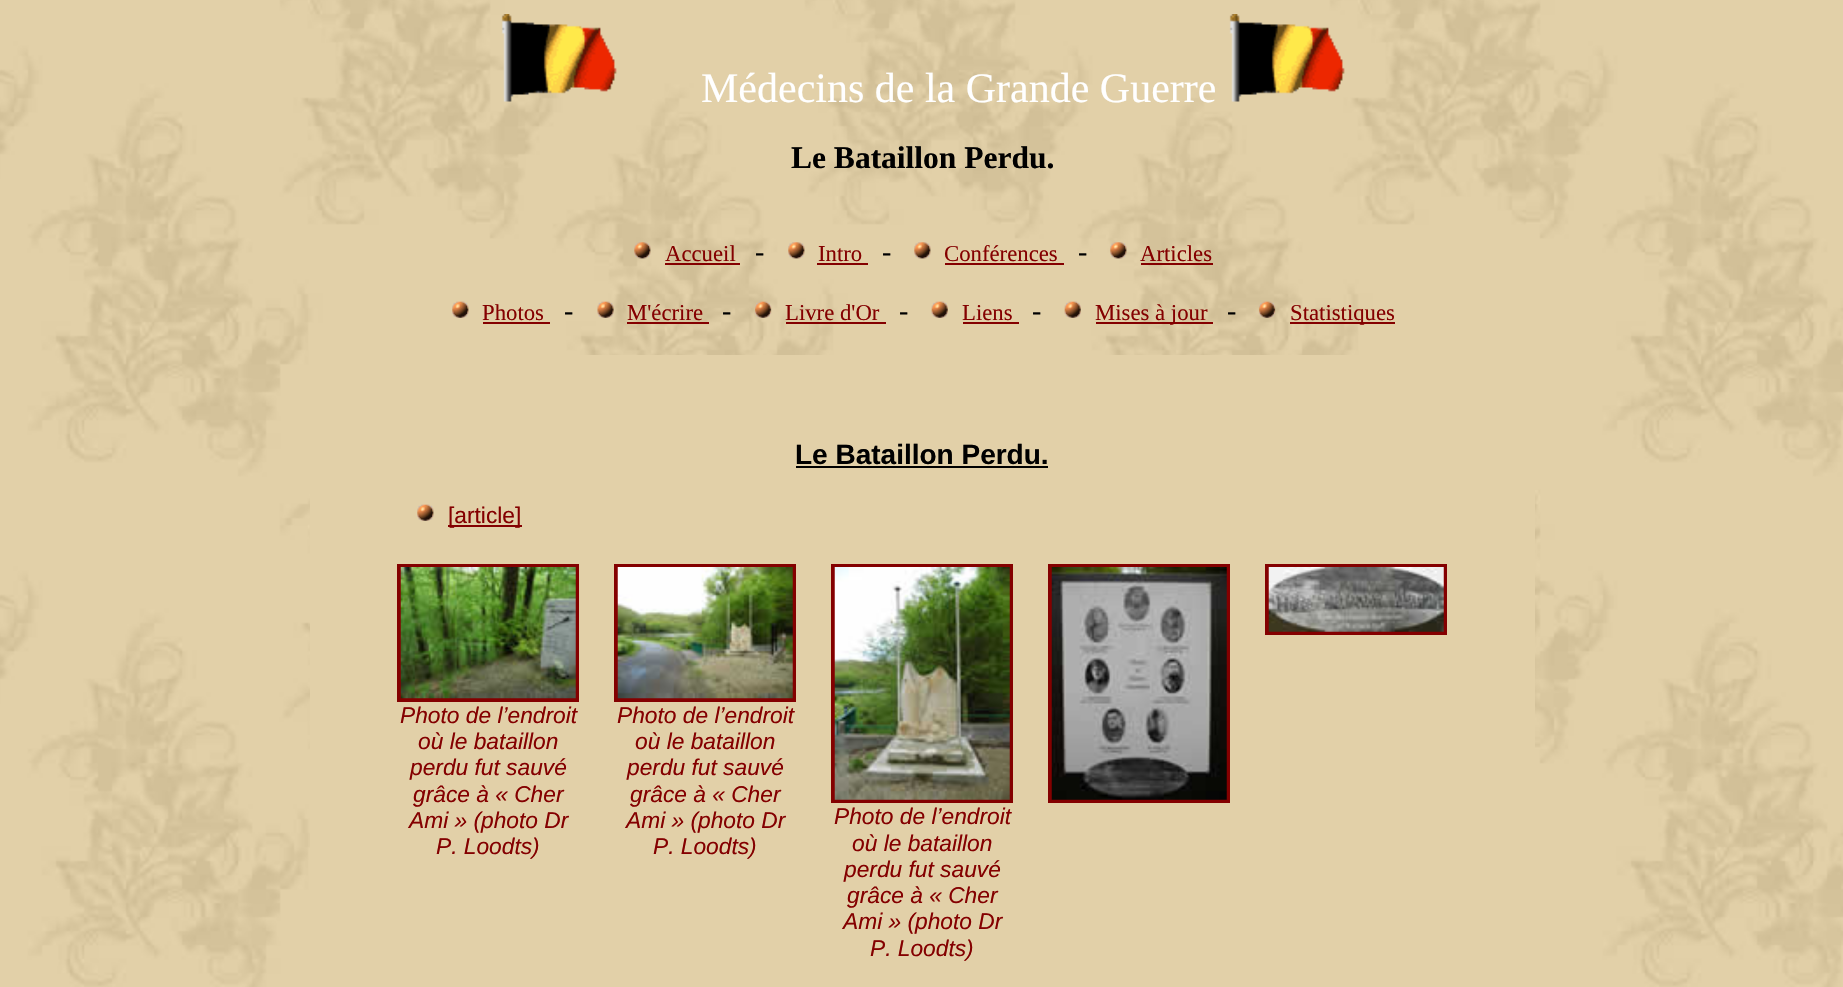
void draw(SkCanvas* canvas) {
	SkPaint paint;
	paint.setAntiAlias(true);
	canvas->clear(0xffffffff);
	canvas->drawImageRect(SkImages::DeferredFromEncodedData(SkData::MakeFromFileName("img1.png")), SkRect::MakeXYWH(0, 0, 1843, 987), SkSamplingOptions());
	canvas->drawImageRect(SkImages::DeferredFromEncodedData(SkData::MakeFromFileName("img2.png")), SkRect::MakeXYWH(501, 14, 116, 88), SkSamplingOptions());
	SkFont f1(fontMgr->matchFamilyStyle("Liberation Serif", SkFontStyle::Normal()), 42);
	f1.setSubpixel(true);
	paint.setColor(0xffffffff);
	canvas->drawString("Médecins de la Grande Guerre", 701, 102, f1, paint);
	canvas->drawImageRect(SkImages::DeferredFromEncodedData(SkData::MakeFromFileName("img3.png")), SkRect::MakeXYWH(1229, 14, 116, 88), SkSamplingOptions());
	SkFont f2(fontMgr->matchFamilyStyle("Liberation Serif", SkFontStyle::Bold()), 31.5);
	f2.setSubpixel(true);
	paint.setColor(0xff000000);
	canvas->drawString("Le Bataillon Perdu.", 791, 168, f2, paint);
	canvas->drawImageRect(SkImages::DeferredFromEncodedData(SkData::MakeFromFileName("img4.png")), SkRect::MakeXYWH(634, 242, 17, 17), SkSamplingOptions());
	SkFont f3(fontMgr->matchFamilyStyle("Liberation Serif", SkFontStyle::Normal()), 22.75);
	f3.setSubpixel(true);
	paint.setColor(0xff840000);
	canvas->drawString("Accueil", 665, 261, f3, paint);
	canvas->drawRect(SkRect::MakeXYWH(665, 263, 75, 2), paint);
	SkFont f4(fontMgr->matchFamilyStyle("Liberation Serif", SkFontStyle::Normal()), 28);
	f4.setSubpixel(true);
	paint.setColor(0xff000000);
	canvas->drawString("-", 755, 261, f4, paint);
	canvas->drawImageRect(SkImages::DeferredFromEncodedData(SkData::MakeFromFileName("img5.png")), SkRect::MakeXYWH(788, 242, 17, 17), SkSamplingOptions());
	paint.setColor(0xff840000);
	canvas->drawString("Intro", 818, 261, f3, paint);
	canvas->drawRect(SkRect::MakeXYWH(817, 263, 51, 2), paint);
	paint.setColor(0xff000000);
	canvas->drawString("-", 882, 261, f4, paint);
	canvas->drawImageRect(SkImages::DeferredFromEncodedData(SkData::MakeFromFileName("img5.png")), SkRect::MakeXYWH(914, 242, 17, 17), SkSamplingOptions());
	paint.setColor(0xff840000);
	canvas->drawString("Conférences", 944, 261, f3, paint);
	canvas->drawRect(SkRect::MakeXYWH(945, 263, 119, 2), paint);
	paint.setColor(0xff000000);
	canvas->drawString("-", 1078, 261, f4, paint);
	canvas->drawImageRect(SkImages::DeferredFromEncodedData(SkData::MakeFromFileName("img6.png")), SkRect::MakeXYWH(1110, 242, 17, 17), SkSamplingOptions());
	paint.setColor(0xff840000);
	canvas->drawString("Articles", 1140, 261, f3, paint);
	canvas->drawRect(SkRect::MakeXYWH(1141, 263, 72, 2), paint);
	canvas->drawImageRect(SkImages::DeferredFromEncodedData(SkData::MakeFromFileName("img7.png")), SkRect::MakeXYWH(452, 301, 17, 17), SkSamplingOptions());
	canvas->drawString("Photos", 482, 320, f3, paint);
	canvas->drawRect(SkRect::MakeXYWH(483, 322, 67, 2), paint);
	paint.setColor(0xff000000);
	canvas->drawString("-", 564, 320, f4, paint);
	canvas->drawImageRect(SkImages::DeferredFromEncodedData(SkData::MakeFromFileName("img8.png")), SkRect::MakeXYWH(597, 301, 17, 17), SkSamplingOptions());
	paint.setColor(0xff840000);
	canvas->drawString("M'écrire", 627, 320, f3, paint);
	canvas->drawRect(SkRect::MakeXYWH(627, 322, 82, 2), paint);
	paint.setColor(0xff000000);
	canvas->drawString("-", 722, 320, f4, paint);
	canvas->drawImageRect(SkImages::DeferredFromEncodedData(SkData::MakeFromFileName("img9.png")), SkRect::MakeXYWH(754, 301, 18, 17), SkSamplingOptions());
	paint.setColor(0xff840000);
	canvas->drawString("Livre d'Or", 785, 320, f3, paint);
	canvas->drawRect(SkRect::MakeXYWH(786, 322, 100, 2), paint);
	paint.setColor(0xff000000);
	canvas->drawString("-", 899, 320, f4, paint);
	canvas->drawImageRect(SkImages::DeferredFromEncodedData(SkData::MakeFromFileName("img10.png")), SkRect::MakeXYWH(931, 301, 17, 17), SkSamplingOptions());
	paint.setColor(0xff840000);
	canvas->drawString("Liens", 962, 320, f3, paint);
	canvas->drawRect(SkRect::MakeXYWH(963, 322, 56, 2), paint);
	paint.setColor(0xff000000);
	canvas->drawString("-", 1032, 320, f4, paint);
	canvas->drawImageRect(SkImages::DeferredFromEncodedData(SkData::MakeFromFileName("img10.png")), SkRect::MakeXYWH(1064, 301, 17, 17), SkSamplingOptions());
	paint.setColor(0xff840000);
	canvas->drawRect(SkRect::MakeXYWH(1096, 322, 117, 2), paint);
	canvas->drawString("Mises à jour", 1095, 320, f3, paint);
	paint.setColor(0xff000000);
	canvas->drawString("-", 1227, 320, f4, paint);
	canvas->drawImageRect(SkImages::DeferredFromEncodedData(SkData::MakeFromFileName("img11.png")), SkRect::MakeXYWH(1258, 301, 18, 17), SkSamplingOptions());
	paint.setColor(0xff840000);
	canvas->drawRect(SkRect::MakeXYWH(1290, 322, 105, 2), paint);
	canvas->drawString("Statistiques", 1290, 320, f3, paint);
	paint.setColor(0xffe2d0a8);
	canvas->drawRect(SkRect::MakeXYWH(310, 355, 1225, 632), paint);
	SkFont f5(fontMgr->matchFamilyStyle("Liberation Sans", SkFontStyle::Bold()), 28);
	f5.setSubpixel(true);
	paint.setColor(0xff000000);
	canvas->drawString("Le Bataillon Perdu.", 795, 464, f5, paint);
	canvas->drawRect(SkRect::MakeXYWH(796, 466, 252, 2), paint);
	canvas->drawImageRect(SkImages::DeferredFromEncodedData(SkData::MakeFromFileName("img12.png")), SkRect::MakeXYWH(417, 504, 17, 17), SkSamplingOptions());
	paint.setColor(0xff840000);
	canvas->drawRect(SkRect::MakeXYWH(448, 525, 74, 2), paint);
	SkFont f6(fontMgr->matchFamilyStyle("Liberation Sans", SkFontStyle::Normal()), 22.75);
	f6.setSubpixel(true);
	canvas->drawString("[article]", 448, 523, f6, paint);
	paint.setStroke(true);
	paint.setStrokeWidth(4);
	canvas->drawRect(SkRect::MakeXYWH(1050, 566, 178, 235), paint);
	canvas->drawImageRect(SkImages::DeferredFromEncodedData(SkData::MakeFromFileName("img13.png")), SkRect::MakeXYWH(1051, 567, 176, 233), SkSamplingOptions());
	canvas->drawRect(SkRect::MakeXYWH(1267, 566, 178, 67), paint);
	canvas->drawImageRect(SkImages::DeferredFromEncodedData(SkData::MakeFromFileName("img14.png")), SkRect::MakeXYWH(1268, 567, 176, 65), SkSamplingOptions());
	canvas->drawRect(SkRect::MakeXYWH(399, 566, 178, 134), paint);
	canvas->drawImageRect(SkImages::DeferredFromEncodedData(SkData::MakeFromFileName("img15.png")), SkRect::MakeXYWH(400, 567, 176, 132), SkSamplingOptions());
	SkFont f7(fontMgr->matchFamilyStyle("Liberation Sans", SkFontStyle::Italic()), 22.75);
	f7.setSubpixel(true);
	paint.setStroke(false);
	canvas->drawString("Photo de l’endroit", 400, 723, f7, paint);
	canvas->drawString("où le bataillon", 418, 749, f7, paint);
	canvas->drawString("perdu fut sauvé", 410, 775, f7, paint);
	canvas->drawString("grâce à « Cher", 413, 802, f7, paint);
	canvas->drawString("Ami » (photo Dr", 409, 828, f7, paint);
	canvas->drawString("P. Loodts)", 436, 854, f7, paint);
	paint.setStroke(true);
	canvas->drawRect(SkRect::MakeXYWH(616, 566, 178, 134), paint);
	canvas->drawImageRect(SkImages::DeferredFromEncodedData(SkData::MakeFromFileName("img16.png")), SkRect::MakeXYWH(617, 567, 176, 132), SkSamplingOptions());
	paint.setStroke(false);
	canvas->drawString("Photo de l’endroit", 617, 723, f7, paint);
	canvas->drawString("où le bataillon", 635, 749, f7, paint);
	canvas->drawString("perdu fut sauvé", 627, 775, f7, paint);
	canvas->drawString("grâce à « Cher", 630, 802, f7, paint);
	canvas->drawString("Ami » (photo Dr", 626, 828, f7, paint);
	canvas->drawString("P. Loodts)", 653, 854, f7, paint);
	paint.setStroke(true);
	canvas->drawRect(SkRect::MakeXYWH(833, 566, 178, 235), paint);
	canvas->drawImageRect(SkImages::DeferredFromEncodedData(SkData::MakeFromFileName("img17.png")), SkRect::MakeXYWH(834, 567, 176, 233), SkSamplingOptions());
	paint.setStroke(false);
	canvas->drawString("Photo de l’endroit", 834, 824, f7, paint);
	canvas->drawString("où le bataillon", 852, 851, f7, paint);
	canvas->drawString("perdu fut sauvé", 844, 877, f7, paint);
	canvas->drawString("grâce à « Cher", 847, 903, f7, paint);
	canvas->drawString("Ami » (photo Dr", 843, 929, f7, paint);
	canvas->drawString("P. Loodts)", 870, 956, f7, paint);
}
